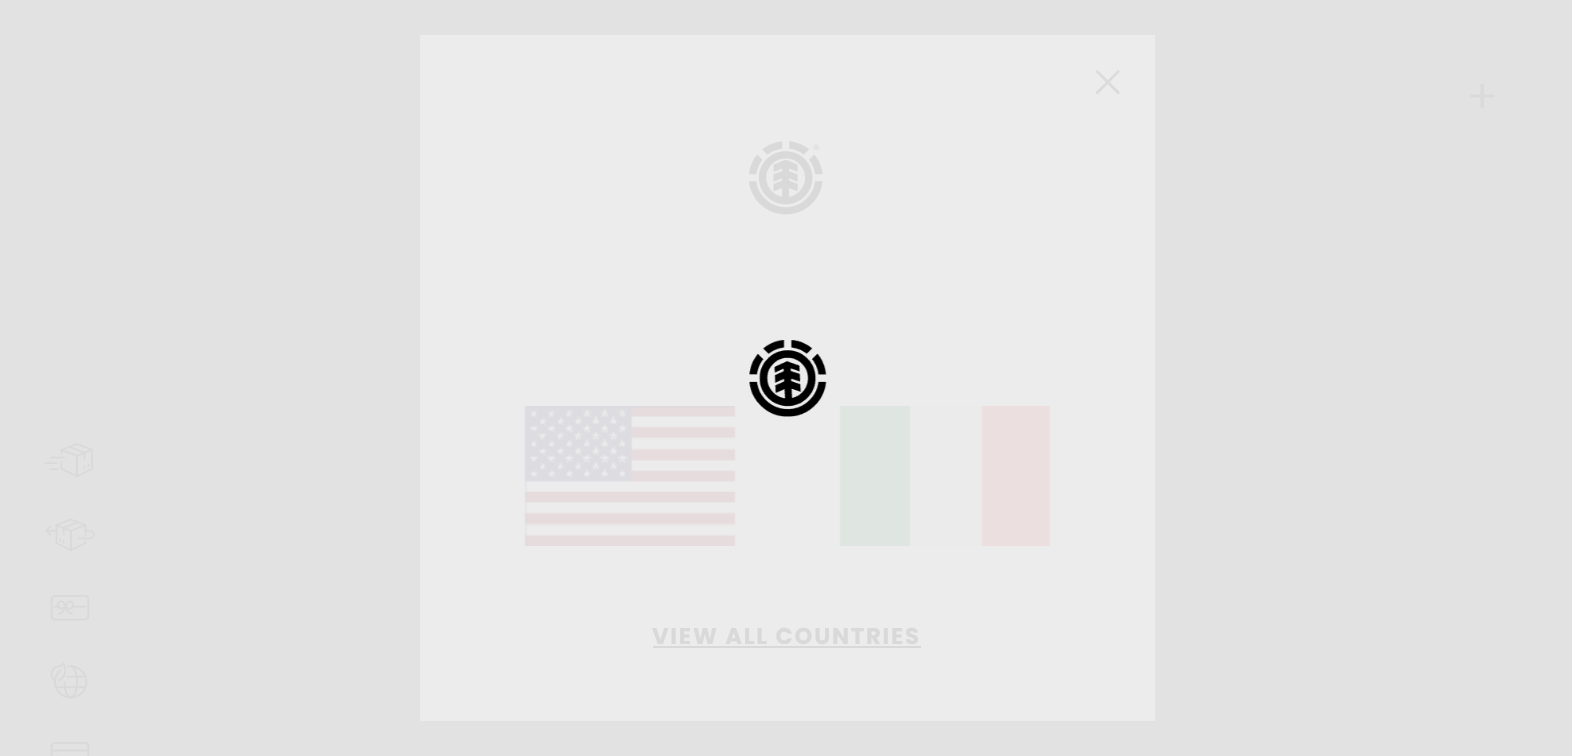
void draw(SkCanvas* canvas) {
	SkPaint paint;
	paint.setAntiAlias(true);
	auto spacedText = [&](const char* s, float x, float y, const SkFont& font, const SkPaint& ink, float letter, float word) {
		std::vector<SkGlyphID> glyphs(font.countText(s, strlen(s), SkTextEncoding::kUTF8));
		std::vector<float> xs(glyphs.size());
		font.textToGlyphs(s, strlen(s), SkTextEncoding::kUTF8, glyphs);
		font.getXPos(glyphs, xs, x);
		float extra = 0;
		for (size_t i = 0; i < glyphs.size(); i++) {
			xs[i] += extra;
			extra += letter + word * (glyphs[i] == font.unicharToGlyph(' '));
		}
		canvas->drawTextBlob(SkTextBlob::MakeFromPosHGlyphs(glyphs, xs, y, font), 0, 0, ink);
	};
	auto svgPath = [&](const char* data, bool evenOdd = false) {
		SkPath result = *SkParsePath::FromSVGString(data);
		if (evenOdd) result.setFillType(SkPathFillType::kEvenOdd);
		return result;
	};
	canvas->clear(0xffe2e2e2);
	paint.setColor(0xffdadada);
	canvas->drawPath(svgPath("M1480.5 84H1484V108.5H1480.5ZM1470 94.5H1494.5V97.5H1470Z"), paint);
	canvas->drawImageRect(SkImages::DeferredFromEncodedData(SkData::MakeFromFileName("img1.png")), SkRect::MakeXYWH(44, 443, 49, 35), SkSamplingOptions());
	canvas->drawImageRect(SkImages::DeferredFromEncodedData(SkData::MakeFromFileName("img2.png")), SkRect::MakeXYWH(45, 518, 50, 33), SkSamplingOptions());
	canvas->drawImageRect(SkImages::DeferredFromEncodedData(SkData::MakeFromFileName("img3.png")), SkRect::MakeXYWH(50, 595, 40, 26), SkSamplingOptions());
	canvas->drawImageRect(SkImages::DeferredFromEncodedData(SkData::MakeFromFileName("img4.png")), SkRect::MakeXYWH(50, 662, 38, 37), SkSamplingOptions());
	canvas->drawImageRect(SkImages::DeferredFromEncodedData(SkData::MakeFromFileName("img5.png")), SkRect::MakeXYWH(50, 742, 40, 14), SkSamplingOptions());
	paint.setColor(0xffececec);
	canvas->drawRect(SkRect::MakeXYWH(420, 35, 735, 686), paint);
	canvas->drawImageRect(SkImages::DeferredFromEncodedData(SkData::MakeFromFileName("img6.png")), SkRect::MakeXYWH(748, 339, 79, 78), SkSamplingOptions());
	paint.setColor(0xffdbdbdb);
	canvas->drawPath(svgPath("M1095.5 71.5L1118 94.5L1120 92.5L1097.5 70ZM1118 70L1095.5 92.5L1097.5 94.5L1120 71.5Z"), paint);
	canvas->drawImageRect(SkImages::DeferredFromEncodedData(SkData::MakeFromFileName("img7.png")), SkRect::MakeXYWH(749, 141, 74, 74), SkSamplingOptions());
	canvas->drawImageRect(SkImages::DeferredFromEncodedData(SkData::MakeFromFileName("img8.png")), SkRect::MakeXYWH(524, 406, 212, 140), SkSamplingOptions());
	canvas->drawImageRect(SkImages::DeferredFromEncodedData(SkData::MakeFromFileName("img9.png")), SkRect::MakeXYWH(839, 406, 211, 140), SkSamplingOptions());
	SkFont f1(fontMgr->matchFamilyStyle("Poppins", SkFontStyle::Bold()), 22.75);
	f1.setSubpixel(true);
	paint.setColor(0xffd9d9d9);
	spacedText("VIEW ALL COUNTRIES", 652, 644, f1, paint, 1.75, 0);
	canvas->drawRect(SkRect::MakeXYWH(653, 646, 268, 2), paint);
}
